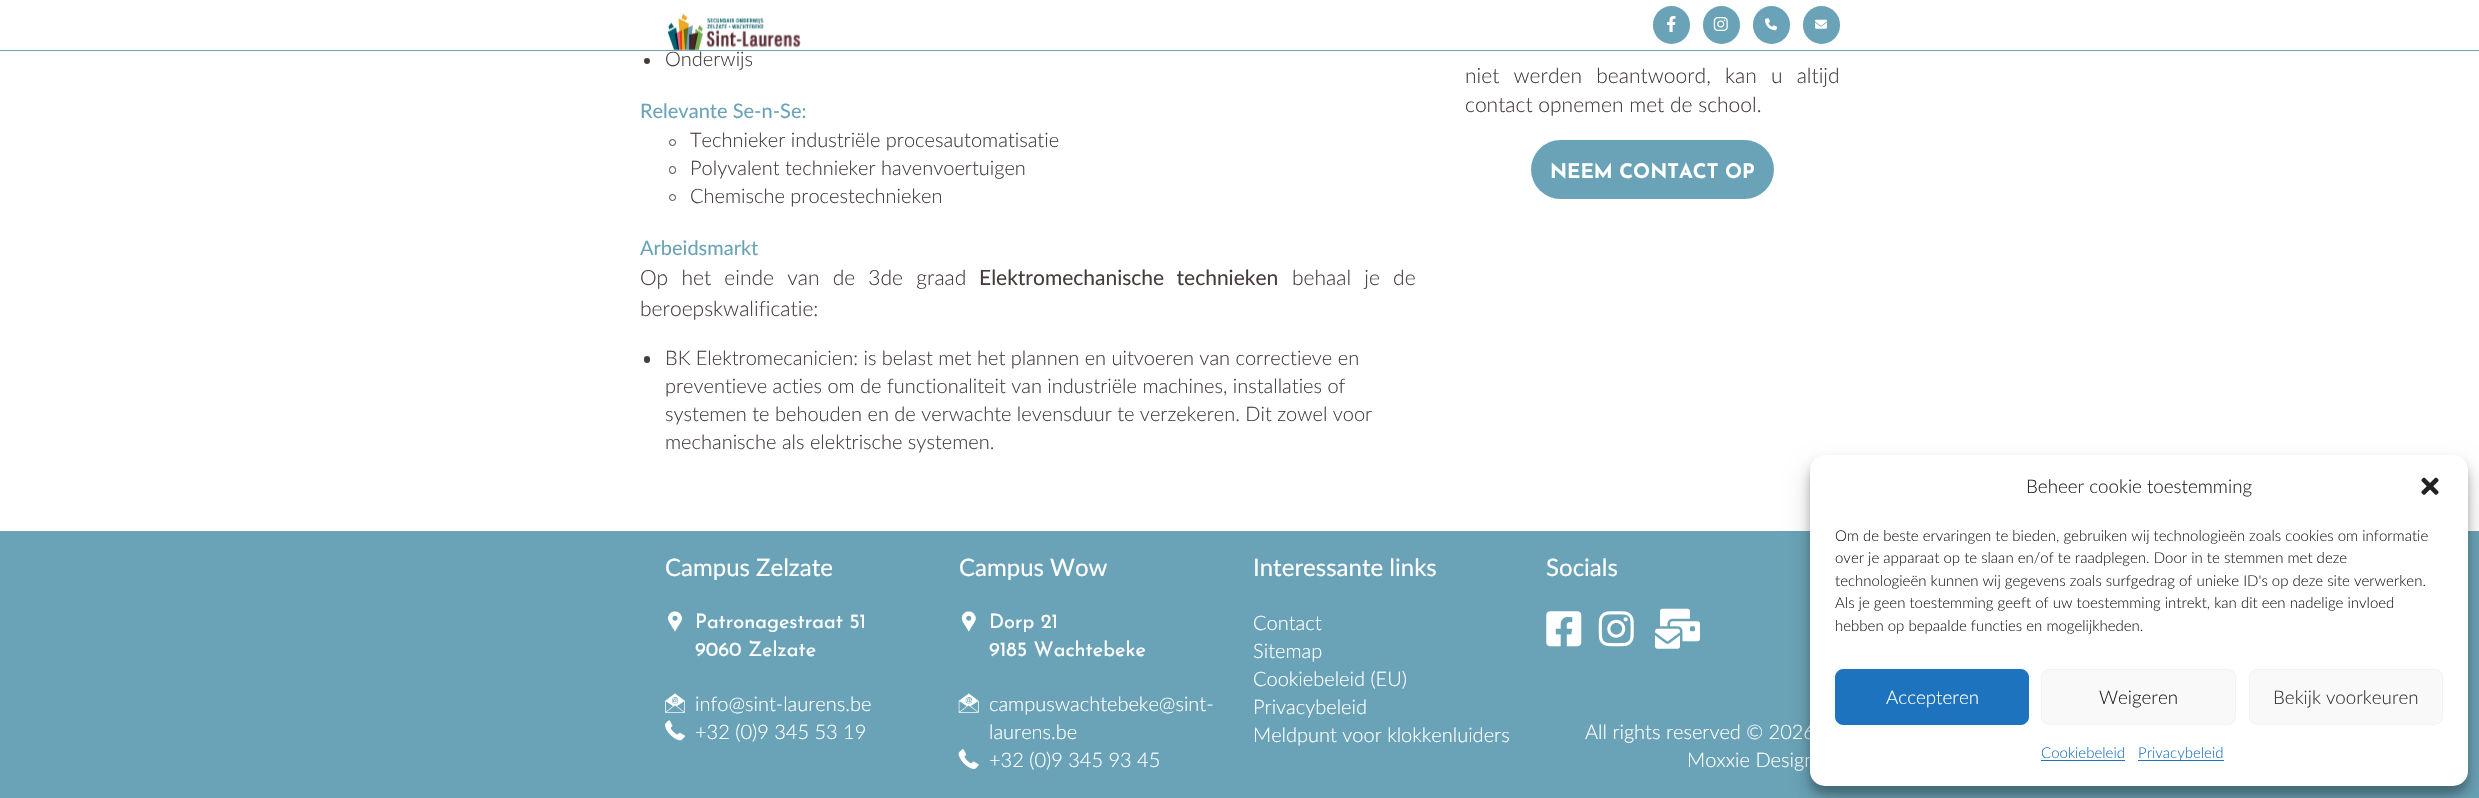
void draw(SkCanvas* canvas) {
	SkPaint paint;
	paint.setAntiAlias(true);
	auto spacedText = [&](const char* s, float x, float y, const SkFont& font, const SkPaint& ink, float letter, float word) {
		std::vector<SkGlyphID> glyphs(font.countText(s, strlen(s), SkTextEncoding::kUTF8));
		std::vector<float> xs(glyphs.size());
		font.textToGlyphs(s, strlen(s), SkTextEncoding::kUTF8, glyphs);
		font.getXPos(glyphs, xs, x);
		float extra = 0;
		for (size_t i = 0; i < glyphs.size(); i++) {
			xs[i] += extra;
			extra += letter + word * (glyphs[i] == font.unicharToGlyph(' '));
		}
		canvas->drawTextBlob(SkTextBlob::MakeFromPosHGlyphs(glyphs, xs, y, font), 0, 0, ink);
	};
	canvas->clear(0xffffffff);
	paint.setColor(0xff6aa3b7);
	canvas->drawRect(SkRect::MakeXYWH(0, 50, 2479, 1), paint);
	canvas->drawImageRect(SkImages::DeferredFromEncodedData(SkData::MakeFromFileName("img1.png")), SkRect::MakeXYWH(667, 13, 134, 37), SkSamplingOptions());
	canvas->drawRoundRect(SkRect::MakeXYWH(1653, 6, 37, 38), 18.5, 18.5, paint);
	canvas->drawImageRect(SkImages::DeferredFromEncodedData(SkData::MakeFromFileName("img2.png")), SkRect::MakeXYWH(1666, 16, 10, 16), SkSamplingOptions());
	canvas->drawRoundRect(SkRect::MakeXYWH(1703, 6, 37, 38), 18.5, 18.5, paint);
	canvas->drawImageRect(SkImages::DeferredFromEncodedData(SkData::MakeFromFileName("img3.png")), SkRect::MakeXYWH(1713, 17, 15, 14), SkSamplingOptions());
	canvas->drawRoundRect(SkRect::MakeXYWH(1753, 6, 37, 38), 18.5, 18.5, paint);
	canvas->drawImageRect(SkImages::DeferredFromEncodedData(SkData::MakeFromFileName("img4.png")), SkRect::MakeXYWH(1765, 18, 12, 13), SkSamplingOptions());
	canvas->drawRoundRect(SkRect::MakeXYWH(1803, 6, 37, 38), 18.5, 18.5, paint);
	canvas->drawImageRect(SkImages::DeferredFromEncodedData(SkData::MakeFromFileName("img5.png")), SkRect::MakeXYWH(1815, 19, 12, 10), SkSamplingOptions());
	paint.setColor(0xff463c3c);
	canvas->drawCircle(647, 61, 3, paint);
	SkFont f1(fontMgr->matchFamilyStyle("Lato", SkFontStyle(300, SkFontStyle::kNormal_Width, SkFontStyle::kUpright_Slant)), 20);
	f1.setSubpixel(true);
	canvas->drawString("Onderwijs", 665, 66, f1, paint);
	SkFont f2(fontMgr->matchFamilyStyle("Lato", SkFontStyle::Normal()), 20);
	f2.setSubpixel(true);
	paint.setColor(0xff6aa3b7);
	canvas->drawString("Relevante Se-n-Se:", 640, 118, f2, paint);
	paint.setStroke(true);
	paint.setStrokeWidth(1);
	paint.setColor(0xff463c3c);
	canvas->drawCircle(672.5, 142.5, 3, paint);
	paint.setStroke(false);
	canvas->drawString("Technieker industriële procesautomatisatie", 690, 147, f1, paint);
	paint.setStroke(true);
	canvas->drawRoundRect(SkRect::MakeXYWH(669.5, 166.5, 6, 7), 3, 3, paint);
	paint.setStroke(false);
	canvas->drawString("Polyvalent technieker havenvoertuigen", 690, 175, f1, paint);
	paint.setStroke(true);
	canvas->drawCircle(672.5, 197.5, 3, paint);
	paint.setStroke(false);
	canvas->drawString("Chemische procestechnieken", 690, 203, f1, paint);
	paint.setColor(0xff6aa3b7);
	canvas->drawString("Arbeidsmarkt", 640, 255, f2, paint);
	SkFont f3(fontMgr->matchFamilyStyle("Lato", SkFontStyle(300, SkFontStyle::kNormal_Width, SkFontStyle::kUpright_Slant)), 21);
	f3.setSubpixel(true);
	paint.setColor(0xff463c3c);
	spacedText("Op het einde van de 3de graad", 640, 285, f3, paint, 0, 7.5);
	SkFont f4(fontMgr->matchFamilyStyle("Lato", SkFontStyle::Normal()), 21);
	f4.setSubpixel(true);
	spacedText("Elektromechanische technieken", 979, 285, f4, paint, 0, 7);
	spacedText("behaal je de", 1292, 285, f3, paint, 0, 7.5);
	canvas->drawString("beroepskwalificatie:", 640, 316, f3, paint);
	canvas->drawRoundRect(SkRect::MakeXYWH(644, 356, 6, 7), 3, 3, paint);
	canvas->drawString("BK Elektromecanicien: is belast met het plannen en uitvoeren van correctieve en", 665, 365, f1, paint);
	canvas->drawString("preventieve acties om de functionaliteit van industriële machines, installaties of", 665, 393, f1, paint);
	canvas->drawString("systemen te behouden en de verwachte levensduur te verzekeren. Dit zowel voor", 665, 421, f1, paint);
	canvas->drawString("mechanische als elektrische systemen.", 665, 449, f1, paint);
	spacedText("niet werden beantwoord, kan u altijd", 1465, 83, f3, paint, 0, 8.5);
	canvas->drawString("contact opnemen met de school.", 1465, 112, f3, paint);
	paint.setColor(0xff6aa3b7);
	canvas->drawRoundRect(SkRect::MakeXYWH(1531, 140, 243, 59), 29.5, 29.5, paint);
	SkFont f5(fontMgr->matchFamilyStyle("Josefin Sans", SkFontStyle::Bold()), 20);
	f5.setSubpixel(true);
	paint.setColor(0xffffffff);
	canvas->drawString("NEEM CONTACT OP", 1550, 178, f5, paint);
	paint.setColor(0xff6aa3b7);
	canvas->drawRect(SkRect::MakeXYWH(0, 531, 2479, 267), paint);
	SkFont f6(fontMgr->matchFamilyStyle("Lato", SkFontStyle::Normal()), 24);
	f6.setSubpixel(true);
	paint.setColor(0xffffffff);
	canvas->drawString("Campus Zelzate", 665, 576, f6, paint);
	canvas->drawImageRect(SkImages::DeferredFromEncodedData(SkData::MakeFromFileName("img6.png")), SkRect::MakeXYWH(667, 611, 16, 21), SkSamplingOptions());
	SkFont f7(fontMgr->matchFamilyStyle("Josefin Sans", SkFontStyle::Normal()), 20);
	f7.setSubpixel(true);
	canvas->drawString("Patronagestraat 51", 695, 628, f7, paint);
	canvas->drawString("9060 Zelzate", 695, 656, f7, paint);
	canvas->drawImageRect(SkImages::DeferredFromEncodedData(SkData::MakeFromFileName("img7.png")), SkRect::MakeXYWH(665, 693, 20, 20), SkSamplingOptions());
	canvas->drawString("info@sint-laurens.be", 695, 711, f1, paint);
	canvas->drawImageRect(SkImages::DeferredFromEncodedData(SkData::MakeFromFileName("img8.png")), SkRect::MakeXYWH(665, 720, 20, 21), SkSamplingOptions());
	canvas->drawString("+32 (0)9 345 53 19", 695, 739, f1, paint);
	canvas->drawString("Campus Wow", 959, 576, f6, paint);
	canvas->drawImageRect(SkImages::DeferredFromEncodedData(SkData::MakeFromFileName("img9.png")), SkRect::MakeXYWH(961, 611, 15, 21), SkSamplingOptions());
	canvas->drawString("Dorp 21", 989, 628, f7, paint);
	canvas->drawString("9185 Wachtebeke", 989, 656, f7, paint);
	canvas->drawImageRect(SkImages::DeferredFromEncodedData(SkData::MakeFromFileName("img10.png")), SkRect::MakeXYWH(958, 693, 21, 20), SkSamplingOptions());
	canvas->drawString("campuswachtebeke@sint-", 989, 711, f1, paint);
	canvas->drawString("laurens.be", 989, 739, f1, paint);
	canvas->drawImageRect(SkImages::DeferredFromEncodedData(SkData::MakeFromFileName("img11.png")), SkRect::MakeXYWH(958, 749, 21, 20), SkSamplingOptions());
	canvas->drawString("+32 (0)9 345 93 45", 989, 767, f1, paint);
	canvas->drawString("Interessante links", 1253, 576, f6, paint);
	canvas->drawString("Contact", 1253, 630, f1, paint);
	canvas->drawString("Sitemap", 1253, 658, f1, paint);
	canvas->drawString("Cookiebeleid (EU)", 1253, 686, f1, paint);
	canvas->drawString("Privacybeleid", 1253, 714, f1, paint);
	canvas->drawString("Meldpunt voor klokkenluiders", 1253, 742, f1, paint);
	canvas->drawString("Socials", 1546, 576, f6, paint);
	canvas->drawImageRect(SkImages::DeferredFromEncodedData(SkData::MakeFromFileName("img12.png")), SkRect::MakeXYWH(1546, 611, 36, 36), SkSamplingOptions());
	canvas->drawImageRect(SkImages::DeferredFromEncodedData(SkData::MakeFromFileName("img13.png")), SkRect::MakeXYWH(1598, 611, 36, 36), SkSamplingOptions());
	canvas->drawImageRect(SkImages::DeferredFromEncodedData(SkData::MakeFromFileName("img14.png")), SkRect::MakeXYWH(1655, 608, 45, 41), SkSamplingOptions());
	canvas->drawString("All rights reserved © 2026", 1585, 739, f1, paint);
	canvas->drawString("Moxxie Design", 1687, 767, f1, paint);
	paint.setColor(0x3b000000);
	paint.setMaskFilter(SkMaskFilter::MakeBlur(kNormal_SkBlurStyle, 4));
	canvas->drawRoundRect(SkRect::MakeXYWH(1810, 463, 658, 331), 15, 15, paint);
	paint.setMaskFilter(nullptr);
	paint.setColor(0x30000000);
	paint.setMaskFilter(SkMaskFilter::MakeBlur(kNormal_SkBlurStyle, 12.5));
	canvas->drawRoundRect(SkRect::MakeXYWH(1810, 468, 658, 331), 15, 15, paint);
	paint.setMaskFilter(nullptr);
	paint.setColor(0xffffffff);
	canvas->drawRoundRect(SkRect::MakeXYWH(1810, 455, 658, 331), 15, 15, paint);
	SkFont f8(fontMgr->matchFamilyStyle("Lato", SkFontStyle(300, SkFontStyle::kNormal_Width, SkFontStyle::kUpright_Slant)), 18.75);
	f8.setSubpixel(true);
	paint.setColor(0xff222222);
	canvas->drawString("Beheer cookie toestemming", 2026, 493, f8, paint);
	canvas->drawImageRect(SkImages::DeferredFromEncodedData(SkData::MakeFromFileName("img15.png")), SkRect::MakeXYWH(2421, 477, 18, 18), SkSamplingOptions());
	SkFont f9(fontMgr->matchFamilyStyle("Lato", SkFontStyle(300, SkFontStyle::kNormal_Width, SkFontStyle::kUpright_Slant)), 15);
	f9.setSubpixel(true);
	canvas->drawString("Om de beste ervaringen te bieden, gebruiken wij technologieën zoals cookies om informatie", 1835, 541, f9, paint);
	canvas->drawString("over je apparaat op te slaan en/of te raadplegen. Door in te stemmen met deze", 1835, 563, f9, paint);
	canvas->drawString("technologieën kunnen wij gegevens zoals surfgedrag of unieke ID's op deze site verwerken.", 1835, 586, f9, paint);
	canvas->drawString("Als je geen toestemming geeft of uw toestemming intrekt, kan dit een nadelige invloed", 1835, 608, f9, paint);
	canvas->drawString("hebben op bepaalde functies en mogelijkheden.", 1835, 631, f9, paint);
	paint.setColor(0xff1e73be);
	canvas->drawRoundRect(SkRect::MakeXYWH(1835.5, 669.5, 193, 55), 7.5, 7.5, paint);
	paint.setStroke(true);
	canvas->drawRoundRect(SkRect::MakeXYWH(1835.5, 669.5, 193, 55), 7.5, 7.5, paint);
	paint.setStroke(false);
	paint.setColor(0xffffffff);
	canvas->drawString("Accepteren", 1886, 704, f8, paint);
	paint.setColor(0xfff9f9f9);
	canvas->drawRoundRect(SkRect::MakeXYWH(2041.5, 669.5, 194, 55), 7.5, 7.5, paint);
	paint.setStroke(true);
	paint.setColor(0xfff2f2f2);
	canvas->drawRoundRect(SkRect::MakeXYWH(2041.5, 669.5, 194, 55), 7.5, 7.5, paint);
	paint.setStroke(false);
	paint.setColor(0xff222222);
	canvas->drawString("Weigeren", 2099, 704, f8, paint);
	paint.setColor(0xfff9f9f9);
	canvas->drawRoundRect(SkRect::MakeXYWH(2249.5, 669.5, 193, 55), 7.5, 7.5, paint);
	paint.setStroke(true);
	paint.setColor(0xfff2f2f2);
	canvas->drawRoundRect(SkRect::MakeXYWH(2249.5, 669.5, 193, 55), 7.5, 7.5, paint);
	paint.setStroke(false);
	paint.setColor(0xff333333);
	canvas->drawString("Bekijk voorkeuren", 2273, 704, f8, paint);
	paint.setColor(0xff1e73be);
	canvas->drawString("Cookiebeleid", 2041, 758, f9, paint);
	canvas->drawRect(SkRect::MakeXYWH(2041, 760, 84, 1), paint);
	canvas->drawRect(SkRect::MakeXYWH(2138, 760, 86, 1), paint);
	canvas->drawString("Privacybeleid", 2138, 758, f9, paint);
}
